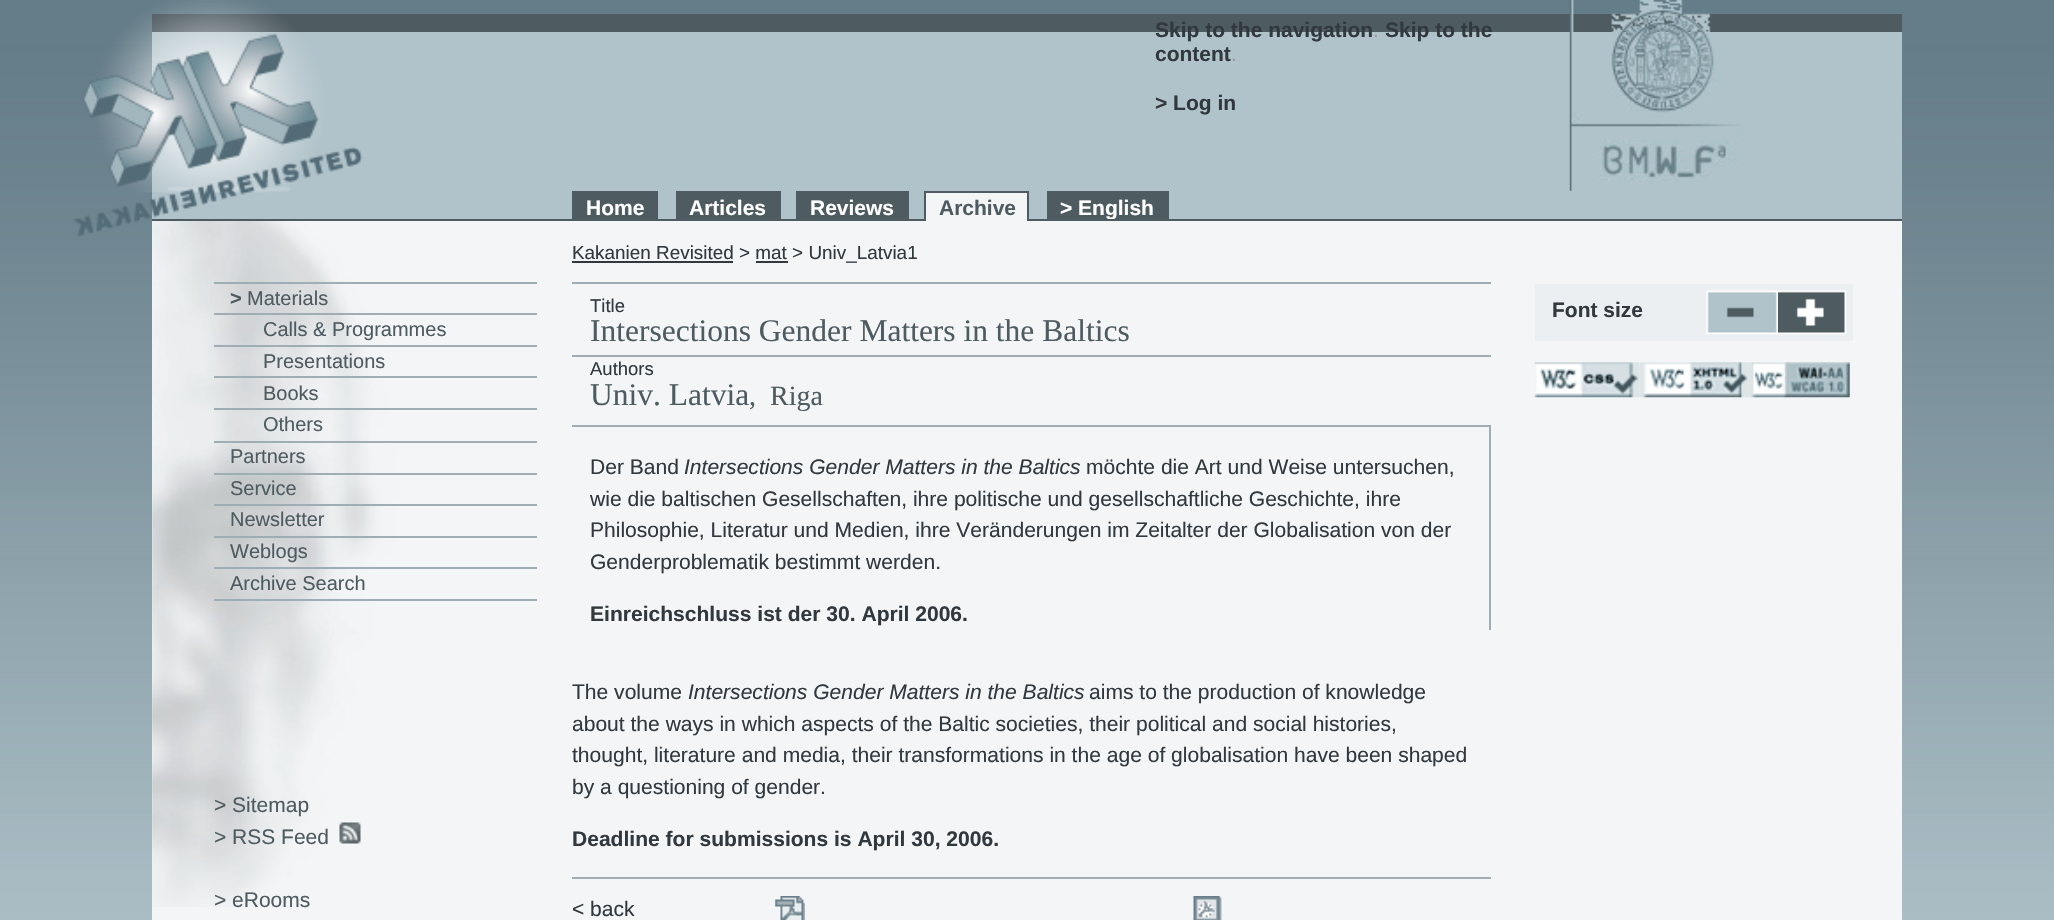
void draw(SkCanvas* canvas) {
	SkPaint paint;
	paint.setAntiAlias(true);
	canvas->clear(0xffffffff);
	canvas->drawImageRect(SkImages::DeferredFromEncodedData(SkData::MakeFromFileName("img1.png")), SkRect::MakeXYWH(0, 0, 2054, 920), SkSamplingOptions());
	paint.setColor(0xffb1c3ca);
	canvas->drawRect(SkRect::MakeXYWH(152, 32, 1750, 187), paint);
	paint.setColor(0xff4e5b61);
	canvas->drawRect(SkRect::MakeXYWH(152, 14, 1750, 18), paint);
	canvas->drawRect(SkRect::MakeXYWH(572, 191, 86, 2), paint);
	canvas->drawRect(SkRect::MakeXYWH(656, 191, 2, 30), paint);
	canvas->drawRect(SkRect::MakeXYWH(572, 191, 2, 30), paint);
	canvas->drawRect(SkRect::MakeXYWH(676, 191, 105, 2), paint);
	canvas->drawRect(SkRect::MakeXYWH(779, 191, 2, 30), paint);
	canvas->drawRect(SkRect::MakeXYWH(676, 191, 2, 30), paint);
	canvas->drawRect(SkRect::MakeXYWH(796, 191, 112, 2), paint);
	canvas->drawRect(SkRect::MakeXYWH(907, 191, 2, 30), paint);
	canvas->drawRect(SkRect::MakeXYWH(796, 191, 2, 30), paint);
	canvas->drawRect(SkRect::MakeXYWH(1049, 193, 118, 26), paint);
	SkFont f1(fontMgr->matchFamilyStyle("Liberation Sans", SkFontStyle::Bold()), 21);
	f1.setSubpixel(true);
	paint.setColor(0xffffffff);
	canvas->drawString("> English", 1060, 215, f1, paint);
	paint.setColor(0xff4e5b61);
	canvas->drawRect(SkRect::MakeXYWH(1047, 191, 122, 2), paint);
	canvas->drawRect(SkRect::MakeXYWH(1167, 191, 2, 30), paint);
	canvas->drawRect(SkRect::MakeXYWH(1047, 191, 2, 30), paint);
	canvas->drawRect(SkRect::MakeXYWH(152, 219, 1750, 2), paint);
	paint.setColor(0xfff3f5f6);
	canvas->drawRect(SkRect::MakeXYWH(152, 221, 1750, 699), paint);
	canvas->drawImageRect(SkImages::DeferredFromEncodedData(SkData::MakeFromFileName("img4.png")), SkRect::MakeXYWH(152, 221, 323, 686), SkSamplingOptions());
	canvas->drawImageRect(SkImages::DeferredFromEncodedData(SkData::MakeFromFileName("img2.png")), SkRect::MakeXYWH(73, 0, 290, 237), SkSamplingOptions());
	paint.setColor(0xff31383e);
	canvas->drawString("Skip to the navigation", 1155, 37, f1, paint);
	SkFont f2(fontMgr->matchFamilyStyle("Liberation Sans", SkFontStyle::Normal()), 21);
	f2.setSubpixel(true);
	paint.setColor(0xff999999);
	canvas->drawString(".", 1373, 37, f2, paint);
	paint.setColor(0xff31383e);
	canvas->drawString("Skip to the", 1385, 37, f1, paint);
	canvas->drawString("content", 1155, 61, f1, paint);
	paint.setColor(0xff999999);
	canvas->drawString(".", 1231, 61, f2, paint);
	paint.setColor(0xff31383e);
	canvas->drawString("> Log in", 1155, 110, f1, paint);
	canvas->drawImageRect(SkImages::DeferredFromEncodedData(SkData::MakeFromFileName("img3.png")), SkRect::MakeXYWH(1569, 0, 181, 191), SkSamplingOptions());
	paint.setColor(0xff4e5b61);
	canvas->drawRect(SkRect::MakeXYWH(574, 193, 82, 26), paint);
	paint.setColor(0xffffffff);
	canvas->drawString("Home", 586, 215, f1, paint);
	paint.setColor(0xff4e5b61);
	canvas->drawRect(SkRect::MakeXYWH(678, 193, 101, 26), paint);
	paint.setColor(0xffffffff);
	canvas->drawString("Articles", 689, 215, f1, paint);
	paint.setColor(0xff4e5b61);
	canvas->drawRect(SkRect::MakeXYWH(798, 193, 109, 26), paint);
	paint.setColor(0xffffffff);
	canvas->drawString("Reviews", 810, 215, f1, paint);
	paint.setColor(0xfff3f5f6);
	canvas->drawRect(SkRect::MakeXYWH(926, 193, 101, 28), paint);
	paint.setColor(0xff4e5b61);
	canvas->drawString("Archive", 939, 215, f1, paint);
	canvas->drawRect(SkRect::MakeXYWH(924, 191, 105, 2), paint);
	canvas->drawRect(SkRect::MakeXYWH(1027, 191, 2, 30), paint);
	canvas->drawRect(SkRect::MakeXYWH(924, 191, 2, 30), paint);
	paint.setColor(0xff9eaeb4);
	canvas->drawRect(SkRect::MakeXYWH(214, 282, 323, 2), paint);
	canvas->drawRect(SkRect::MakeXYWH(214, 313, 323, 2), paint);
	SkFont f3(fontMgr->matchFamilyStyle("Liberation Sans", SkFontStyle::Bold()), 20);
	f3.setSubpixel(true);
	paint.setColor(0xff4e5b61);
	canvas->drawString(">", 230, 305, f3, paint);
	SkFont f4(fontMgr->matchFamilyStyle("Liberation Sans", SkFontStyle::Normal()), 20);
	f4.setSubpixel(true);
	canvas->drawString("Materials", 247, 305, f4, paint);
	paint.setColor(0xff9eaeb4);
	canvas->drawRect(SkRect::MakeXYWH(214, 345, 323, 2), paint);
	paint.setColor(0xff4e5b61);
	canvas->drawString("Calls & Programmes", 263, 336, f4, paint);
	paint.setColor(0xff9eaeb4);
	canvas->drawRect(SkRect::MakeXYWH(214, 376, 323, 2), paint);
	paint.setColor(0xff4e5b61);
	canvas->drawString("Presentations", 263, 368, f4, paint);
	paint.setColor(0xff9eaeb4);
	canvas->drawRect(SkRect::MakeXYWH(214, 408, 323, 2), paint);
	paint.setColor(0xff4e5b61);
	canvas->drawString("Books", 263, 400, f4, paint);
	paint.setColor(0xff9eaeb4);
	canvas->drawRect(SkRect::MakeXYWH(214, 441, 323, 2), paint);
	paint.setColor(0xff4e5b61);
	canvas->drawString("Others", 263, 431, f4, paint);
	paint.setColor(0xff9eaeb4);
	canvas->drawRect(SkRect::MakeXYWH(214, 473, 323, 2), paint);
	paint.setColor(0xff4e5b61);
	canvas->drawString("Partners", 230, 463, f4, paint);
	paint.setColor(0xff9eaeb4);
	canvas->drawRect(SkRect::MakeXYWH(214, 504, 323, 2), paint);
	paint.setColor(0xff4e5b61);
	canvas->drawString("Service", 230, 495, f4, paint);
	paint.setColor(0xff9eaeb4);
	canvas->drawRect(SkRect::MakeXYWH(214, 536, 323, 2), paint);
	paint.setColor(0xff4e5b61);
	canvas->drawString("Newsletter", 230, 526, f4, paint);
	paint.setColor(0xff9eaeb4);
	canvas->drawRect(SkRect::MakeXYWH(214, 567, 323, 2), paint);
	paint.setColor(0xff4e5b61);
	canvas->drawString("Weblogs", 230, 558, f4, paint);
	paint.setColor(0xff9eaeb4);
	canvas->drawRect(SkRect::MakeXYWH(214, 599, 323, 2), paint);
	paint.setColor(0xff4e5b61);
	canvas->drawString("Archive Search", 230, 590, f4, paint);
	canvas->drawString("> Sitemap", 214, 812, f2, paint);
	canvas->drawString("> RSS Feed", 214, 844, f2, paint);
	canvas->drawImageRect(SkImages::DeferredFromEncodedData(SkData::MakeFromFileName("img5.png")), SkRect::MakeXYWH(339, 822, 22, 22), SkSamplingOptions());
	canvas->drawString("> eRooms", 214, 907, f2, paint);
	paint.setColor(0xff31383e);
	canvas->drawRect(SkRect::MakeXYWH(572, 261, 161, 2), paint);
	SkFont f5(fontMgr->matchFamilyStyle("Liberation Sans", SkFontStyle::Normal()), 18.9);
	f5.setSubpixel(true);
	canvas->drawString("Kakanien Revisited > mat > Univ_Latvia1", 572, 259, f5, paint);
	canvas->drawRect(SkRect::MakeXYWH(756, 261, 32, 2), paint);
	paint.setColor(0xff9eaeb4);
	canvas->drawRect(SkRect::MakeXYWH(572, 282, 919, 2), paint);
	canvas->drawRect(SkRect::MakeXYWH(572, 425, 919, 2), paint);
	SkFont f6(fontMgr->matchFamilyStyle("Liberation Sans", SkFontStyle::Normal()), 18.5);
	f6.setSubpixel(true);
	paint.setColor(0xff31383e);
	canvas->drawString("Title", 590, 312, f6, paint);
	paint.setColor(0xff9eaeb4);
	canvas->drawRect(SkRect::MakeXYWH(572, 355, 919, 2), paint);
	SkFont f7(fontMgr->matchFamilyStyle("Liberation Serif", SkFontStyle::Normal()), 31.5);
	f7.setSubpixel(true);
	paint.setColor(0xff4e5b61);
	canvas->drawString("Intersections Gender Matters in the Baltics", 590, 341, f7, paint);
	paint.setColor(0xff31383e);
	canvas->drawString("Authors", 590, 375, f6, paint);
	paint.setColor(0xff4e5b61);
	canvas->drawString("Univ. Latvia", 590, 405, f7, paint);
	SkFont f8(fontMgr->matchFamilyStyle("Liberation Serif", SkFontStyle::Normal()), 28);
	f8.setSubpixel(true);
	canvas->drawString(",  Riga", 749, 405, f8, paint);
	paint.setColor(0xff9eaeb4);
	canvas->drawRect(SkRect::MakeXYWH(1489, 427, 2, 203), paint);
	SkFont f9(fontMgr->matchFamilyStyle("Liberation Sans", SkFontStyle::Normal()), 21.05);
	f9.setSubpixel(true);
	paint.setColor(0xff31383e);
	canvas->drawString("Der Band", 590, 474, f9, paint);
	SkFont f10(fontMgr->matchFamilyStyle("Liberation Sans", SkFontStyle::Italic()), 21.05);
	f10.setSubpixel(true);
	canvas->drawString("Intersections Gender Matters in the Baltics", 684, 474, f10, paint);
	canvas->drawString("möchte die Art und Weise untersuchen,", 1086, 474, f9, paint);
	canvas->drawString("wie die baltischen Gesellschaften, ihre politische und gesellschaftliche Geschichte, ihre", 590, 506, f9, paint);
	canvas->drawString("Philosophie, Literatur und Medien, ihre Veränderungen im Zeitalter der Globalisation von der", 590, 537, f9, paint);
	canvas->drawString("Genderproblematik bestimmt werden.", 590, 569, f9, paint);
	SkFont f11(fontMgr->matchFamilyStyle("Liberation Sans", SkFontStyle::Bold()), 21.05);
	f11.setSubpixel(true);
	canvas->drawString("Einreichschluss ist der 30. April 2006.", 590, 621, f11, paint);
	canvas->drawString("The volume", 572, 699, f9, paint);
	canvas->drawString("Intersections Gender Matters in the Baltics", 688, 699, f10, paint);
	canvas->drawString("aims to the production of knowledge", 1089, 699, f9, paint);
	canvas->drawString("about the ways in which aspects of the Baltic societies, their political and social histories,", 572, 731, f9, paint);
	canvas->drawString("thought, literature and media, their transformations in the age of globalisation have been shaped", 572, 762, f9, paint);
	canvas->drawString("by a questioning of gender.", 572, 794, f9, paint);
	canvas->drawString("Deadline for submissions is April 30, 2006.", 572, 846, f11, paint);
	paint.setColor(0xff9eaeb4);
	canvas->drawRect(SkRect::MakeXYWH(572, 877, 919, 2), paint);
	paint.setColor(0xff31383e);
	canvas->drawString("< back", 572, 916, f2, paint);
	canvas->drawImageRect(SkImages::DeferredFromEncodedData(SkData::MakeFromFileName("img6.png")), SkRect::MakeXYWH(775, 896, 30, 24), SkSamplingOptions());
	canvas->drawImageRect(SkImages::DeferredFromEncodedData(SkData::MakeFromFileName("img7.png")), SkRect::MakeXYWH(1193, 896, 29, 24), SkSamplingOptions());
	paint.setColor(0xffebeff1);
	canvas->drawRect(SkRect::MakeXYWH(1535, 284, 318, 57), paint);
	paint.setColor(0xff31383e);
	canvas->drawString("Font size", 1552, 317, f1, paint);
	canvas->drawImageRect(SkImages::DeferredFromEncodedData(SkData::MakeFromFileName("img8.png")), SkRect::MakeXYWH(1706, 290, 72, 45), SkSamplingOptions());
	canvas->drawImageRect(SkImages::DeferredFromEncodedData(SkData::MakeFromFileName("img9.png")), SkRect::MakeXYWH(1778, 290, 69, 45), SkSamplingOptions());
	canvas->drawImageRect(SkImages::DeferredFromEncodedData(SkData::MakeFromFileName("img10.png")), SkRect::MakeXYWH(1534, 362, 106, 36), SkSamplingOptions());
	canvas->drawImageRect(SkImages::DeferredFromEncodedData(SkData::MakeFromFileName("img11.png")), SkRect::MakeXYWH(1640, 362, 109, 36), SkSamplingOptions());
	canvas->drawImageRect(SkImages::DeferredFromEncodedData(SkData::MakeFromFileName("img12.png")), SkRect::MakeXYWH(1748, 362, 102, 36), SkSamplingOptions());
}
